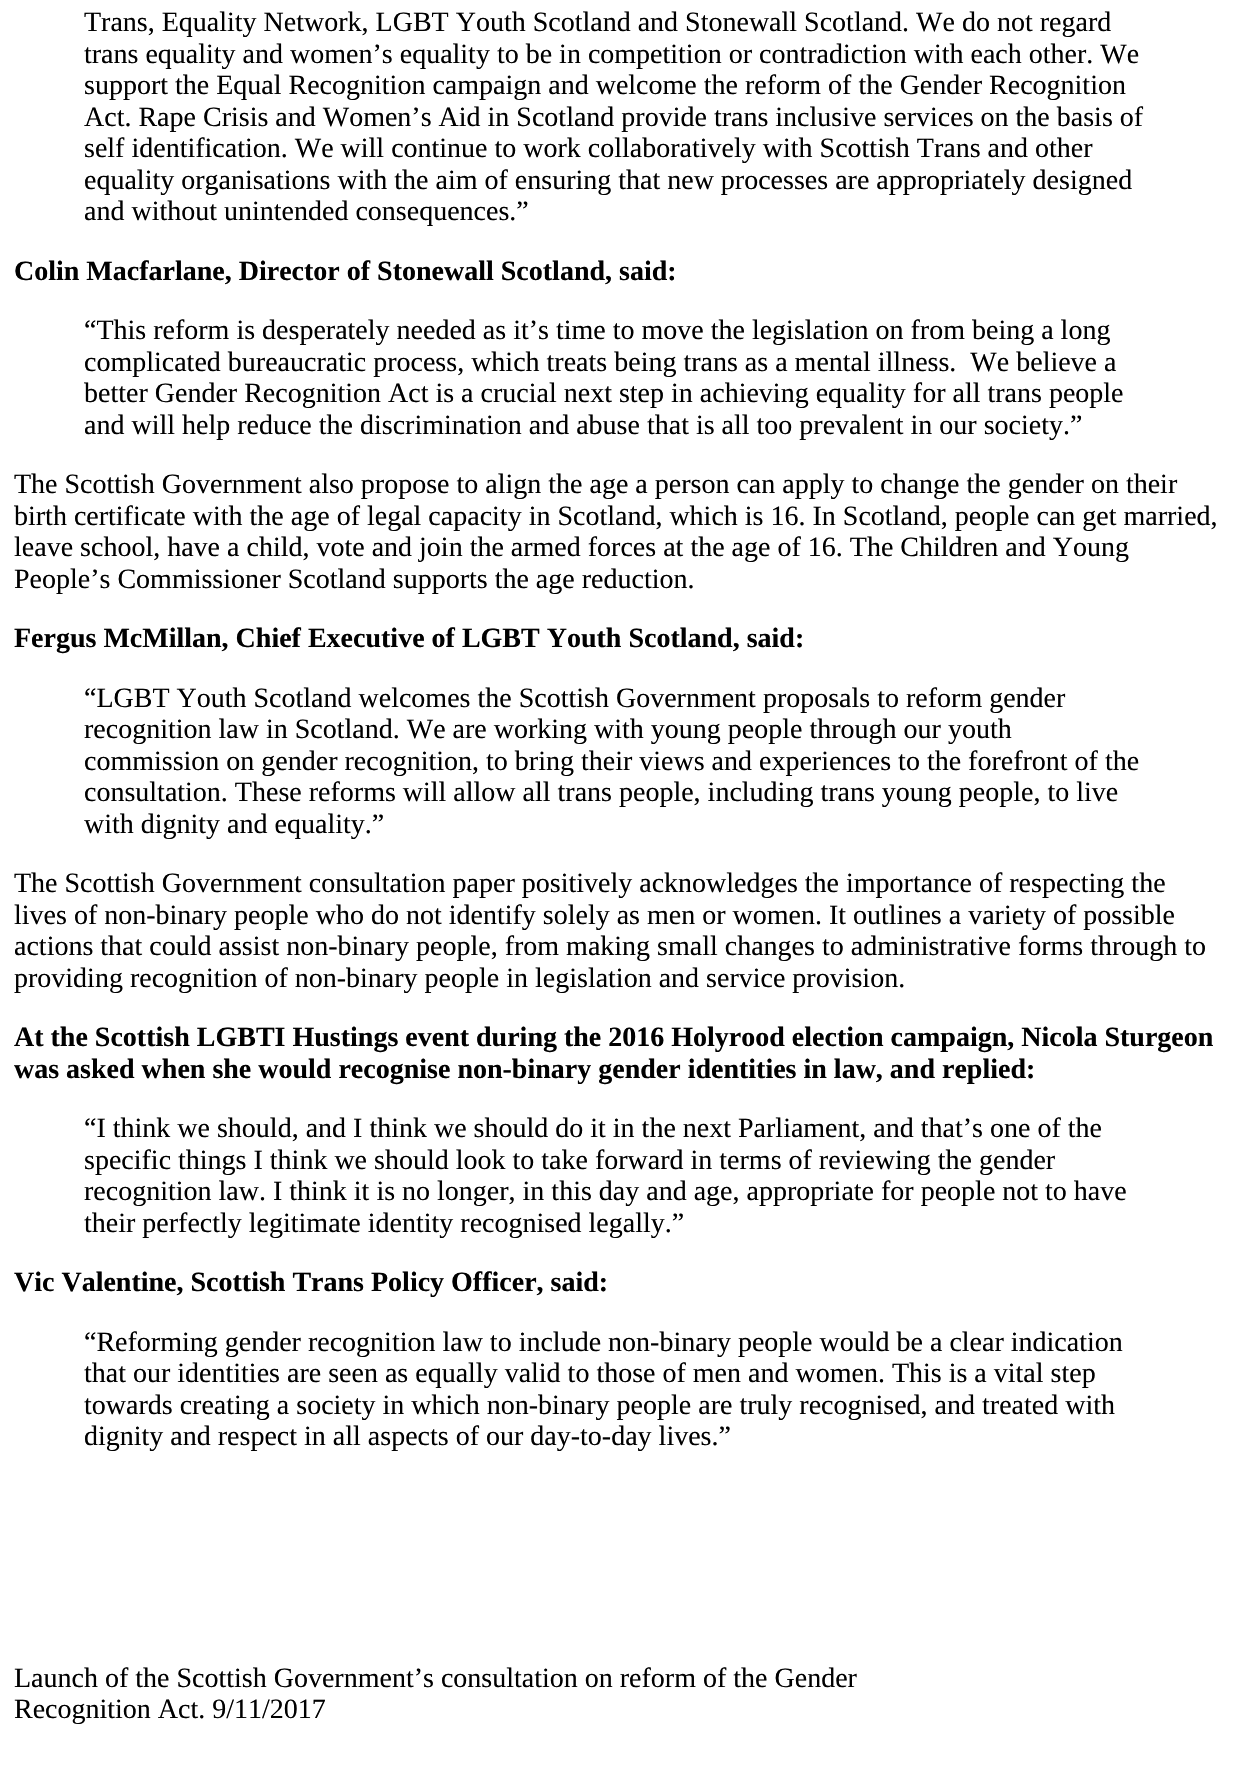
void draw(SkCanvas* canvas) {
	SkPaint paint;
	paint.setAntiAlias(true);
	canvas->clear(0xffffffff);
	SkFont f1(fontMgr->matchFamilyStyle("Liberation Serif", SkFontStyle::Normal()), 28);
	f1.setSubpixel(true);
	paint.setColor(0xff000000);
	canvas->drawString("Trans, Equality Network, LGBT Youth Scotland and Stonewall Scotland. We do not regard", 84, 31, f1, paint);
	canvas->drawString("trans equality and women’s equality to be in competition or contradiction with each other. We", 84, 63, f1, paint);
	canvas->drawString("support the Equal Recognition campaign and welcome the reform of the Gender Recognition", 84, 94, f1, paint);
	canvas->drawString("Act. Rape Crisis and Women’s Aid in Scotland provide trans inclusive services on the basis of", 84, 126, f1, paint);
	canvas->drawString("self identification. We will continue to work collaboratively with Scottish Trans and other", 84, 157, f1, paint);
	canvas->drawString("equality organisations with the aim of ensuring that new processes are appropriately designed", 84, 189, f1, paint);
	canvas->drawString("and without unintended consequences.”", 84, 220, f1, paint);
	SkFont f2(fontMgr->matchFamilyStyle("Liberation Serif", SkFontStyle::Bold()), 28);
	f2.setSubpixel(true);
	canvas->drawString("Colin Macfarlane, Director of Stonewall Scotland, said:", 14, 280, f2, paint);
	canvas->drawString("“This reform is desperately needed as it’s time to move the legislation on from being a long", 84, 339, f1, paint);
	canvas->drawString("complicated bureaucratic process, which treats being trans as a mental illness.  We believe a", 84, 371, f1, paint);
	canvas->drawString("better Gender Recognition Act is a crucial next step in achieving equality for all trans people", 84, 402, f1, paint);
	canvas->drawString("and will help reduce the discrimination and abuse that is all too prevalent in our society.”", 84, 434, f1, paint);
	canvas->drawString("The Scottish Government also propose to align the age a person can apply to change the gender on their", 14, 493, f1, paint);
	canvas->drawString("birth certificate with the age of legal capacity in Scotland, which is 16. In Scotland, people can get married,", 14, 525, f1, paint);
	canvas->drawString("leave school, have a child, vote and join the armed forces at the age of 16. The Children and Young", 14, 556, f1, paint);
	canvas->drawString("People’s Commissioner Scotland supports the age reduction.", 14, 588, f1, paint);
	canvas->drawString("Fergus McMillan, Chief Executive of LGBT Youth Scotland, said:", 14, 647, f2, paint);
	canvas->drawString("“LGBT Youth Scotland welcomes the Scottish Government proposals to reform gender", 84, 707, f1, paint);
	canvas->drawString("recognition law in Scotland. We are working with young people through our youth", 84, 738, f1, paint);
	canvas->drawString("commission on gender recognition, to bring their views and experiences to the forefront of the", 84, 770, f1, paint);
	canvas->drawString("consultation. These reforms will allow all trans people, including trans young people, to live", 84, 801, f1, paint);
	canvas->drawString("with dignity and equality.”", 84, 833, f1, paint);
	canvas->drawString("The Scottish Government consultation paper positively acknowledges the importance of respecting the", 14, 892, f1, paint);
	canvas->drawString("lives of non-binary people who do not identify solely as men or women. It outlines a variety of possible", 14, 924, f1, paint);
	canvas->drawString("actions that could assist non-binary people, from making small changes to administrative forms through to", 14, 955, f1, paint);
	canvas->drawString("providing recognition of non-binary people in legislation and service provision.", 14, 987, f1, paint);
	canvas->drawString("At the Scottish LGBTI Hustings event during the 2016 Holyrood election campaign, Nicola Sturgeon", 14, 1046, f2, paint);
	canvas->drawString("was asked when she would recognise non-binary gender identities in law, and replied:", 14, 1078, f2, paint);
	canvas->drawString("“I think we should, and I think we should do it in the next Parliament, and that’s one of the", 84, 1137, f1, paint);
	canvas->drawString("specific things I think we should look to take forward in terms of reviewing the gender", 84, 1169, f1, paint);
	canvas->drawString("recognition law. I think it is no longer, in this day and age, appropriate for people not to have", 84, 1200, f1, paint);
	canvas->drawString("their perfectly legitimate identity recognised legally.”", 84, 1232, f1, paint);
	canvas->drawString("Vic Valentine, Scottish Trans Policy Officer, said:", 14, 1291, f2, paint);
	canvas->drawString("“Reforming gender recognition law to include non-binary people would be a clear indication", 84, 1351, f1, paint);
	canvas->drawString("that our identities are seen as equally valid to those of men and women. This is a vital step", 84, 1382, f1, paint);
	canvas->drawString("towards creating a society in which non-binary people are truly recognised, and treated with", 84, 1414, f1, paint);
	canvas->drawString("dignity and respect in all aspects of our day-to-day lives.”", 84, 1445, f1, paint);
	canvas->drawString("Launch of the Scottish Government’s consultation on reform of the Gender", 14, 1687, f1, paint);
	canvas->drawString("Recognition Act. 9/11/2017", 14, 1718, f1, paint);
}
